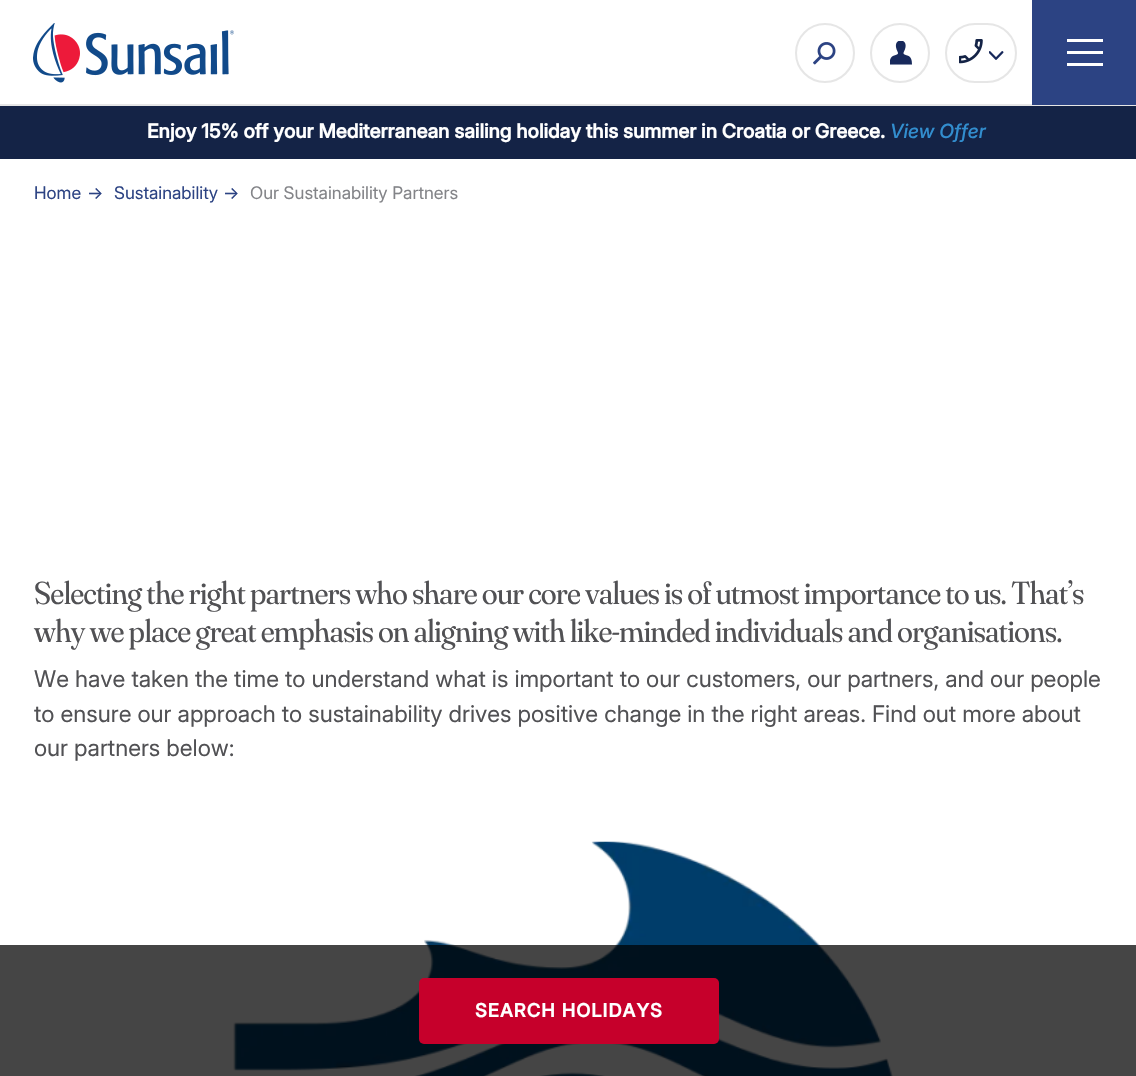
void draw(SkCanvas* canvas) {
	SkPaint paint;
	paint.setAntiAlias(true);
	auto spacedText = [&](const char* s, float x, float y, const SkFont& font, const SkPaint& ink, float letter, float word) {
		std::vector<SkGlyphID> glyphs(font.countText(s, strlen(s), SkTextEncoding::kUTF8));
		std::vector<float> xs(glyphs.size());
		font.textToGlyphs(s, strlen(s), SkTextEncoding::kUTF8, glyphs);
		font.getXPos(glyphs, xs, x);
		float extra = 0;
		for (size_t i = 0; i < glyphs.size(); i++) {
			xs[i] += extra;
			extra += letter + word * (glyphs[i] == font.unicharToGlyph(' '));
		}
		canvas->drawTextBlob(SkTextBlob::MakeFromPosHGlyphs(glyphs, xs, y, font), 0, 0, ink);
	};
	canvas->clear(0xffffffff);
	paint.setColor(0xffe6e6e6);
	canvas->drawRect(SkRect::MakeXYWH(0, 104, 1136, 2), paint);
	canvas->drawImageRect(SkImages::DeferredFromEncodedData(SkData::MakeFromFileName("img1.png")), SkRect::MakeXYWH(33, 23, 201, 60), SkSamplingOptions());
	paint.setStroke(true);
	paint.setStrokeWidth(2);
	canvas->drawCircle(825, 53, 29, paint);
	canvas->drawImageRect(SkImages::DeferredFromEncodedData(SkData::MakeFromFileName("img2.png")), SkRect::MakeXYWH(813, 42, 23, 23), SkSamplingOptions());
	canvas->drawCircle(900, 53, 29, paint);
	canvas->drawImageRect(SkImages::DeferredFromEncodedData(SkData::MakeFromFileName("img3.png")), SkRect::MakeXYWH(890, 41, 22, 24), SkSamplingOptions());
	canvas->drawRoundRect(SkRect::MakeXYWH(946, 24, 70, 58), 29, 29, paint);
	canvas->drawImageRect(SkImages::DeferredFromEncodedData(SkData::MakeFromFileName("img4.png")), SkRect::MakeXYWH(959, 39, 24, 25), SkSamplingOptions());
	canvas->drawImageRect(SkImages::DeferredFromEncodedData(SkData::MakeFromFileName("img5.png")), SkRect::MakeXYWH(989, 51, 15, 9), SkSamplingOptions());
	paint.setStroke(false);
	paint.setColor(0xff2c4383);
	canvas->drawRect(SkRect::MakeXYWH(1032, 0, 104, 105), paint);
	paint.setColor(0xffffffff);
	canvas->drawRect(SkRect::MakeXYWH(1067, 51, 36, 3), paint);
	canvas->drawRect(SkRect::MakeXYWH(1067, 39, 36, 3), paint);
	canvas->drawRect(SkRect::MakeXYWH(1067, 63, 36, 3), paint);
	paint.setColor(0xff142346);
	canvas->drawRect(SkRect::MakeXYWH(0, 106, 1136, 53), paint);
	SkFont f1(fontMgr->matchFamilyStyle("Inter", SkFontStyle::Bold()), 19.5);
	f1.setSubpixel(true);
	paint.setColor(0xffffffff);
	canvas->drawString("Enjoy 15% off your Mediterranean sailing holiday this summer in Croatia or Greece.", 147, 138, f1, paint);
	SkFont f2(fontMgr->matchFamilyStyle("Inter", SkFontStyle(500, SkFontStyle::kNormal_Width, SkFontStyle::kItalic_Slant)), 19.5);
	f2.setSubpixel(true);
	paint.setColor(0xff328ecf);
	canvas->drawString("View Offer", 890, 138, f2, paint);
	SkFont f3(fontMgr->matchFamilyStyle("Inter", SkFontStyle::Normal()), 17.4);
	f3.setSubpixel(true);
	paint.setColor(0xff2c4383);
	canvas->drawString("Home", 34, 199, f3, paint);
	canvas->drawString("→", 87, 199, f3, paint);
	canvas->drawString("Sustainability", 114, 199, f3, paint);
	canvas->drawString("→", 223, 199, f3, paint);
	paint.setColor(0xff838488);
	canvas->drawString("Our Sustainability Partners", 250, 199, f3, paint);
	SkFont f4(fontMgr->matchFamilyStyle("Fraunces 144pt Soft", SkFontStyle::Normal()), 31.8);
	f4.setSubpixel(true);
	paint.setColor(0xff515154);
	spacedText("Selecting the right partners who share our core values is of utmost importance to us. That’s", 34, 604, f4, paint, -0.45, 0);
	spacedText("why we place great emphasis on aligning with like-minded individuals and organisations.", 34, 642, f4, paint, -0.45, 0);
	SkFont f5(fontMgr->matchFamilyStyle("Inter", SkFontStyle::Normal()), 22.95);
	f5.setSubpixel(true);
	canvas->drawString("We have taken the time to understand what is important to our customers, our partners, and our people", 34, 687, f5, paint);
	canvas->drawString("to ensure our approach to sustainability drives positive change in the right areas. Find out more about", 34, 722, f5, paint);
	canvas->drawString("our partners below:", 34, 756, f5, paint);
	canvas->drawImageRect(SkImages::DeferredFromEncodedData(SkData::MakeFromFileName("img6.png")), SkRect::MakeXYWH(233, 841, 660, 235), SkSamplingOptions());
	paint.setColor(0xba000000);
	canvas->drawRect(SkRect::MakeXYWH(0, 945, 1136, 131), paint);
	paint.setColor(0xffc6002b);
	canvas->drawRoundRect(SkRect::MakeXYWH(419, 978, 300, 66), 5, 5, paint);
	SkFont f6(fontMgr->matchFamilyStyle("Inter", SkFontStyle::Bold()), 18.5);
	f6.setSubpixel(true);
	paint.setColor(0xffffffff);
	spacedText("SEARCH HOLIDAYS", 475, 1017, f6, paint, 1.1, 0);
}
